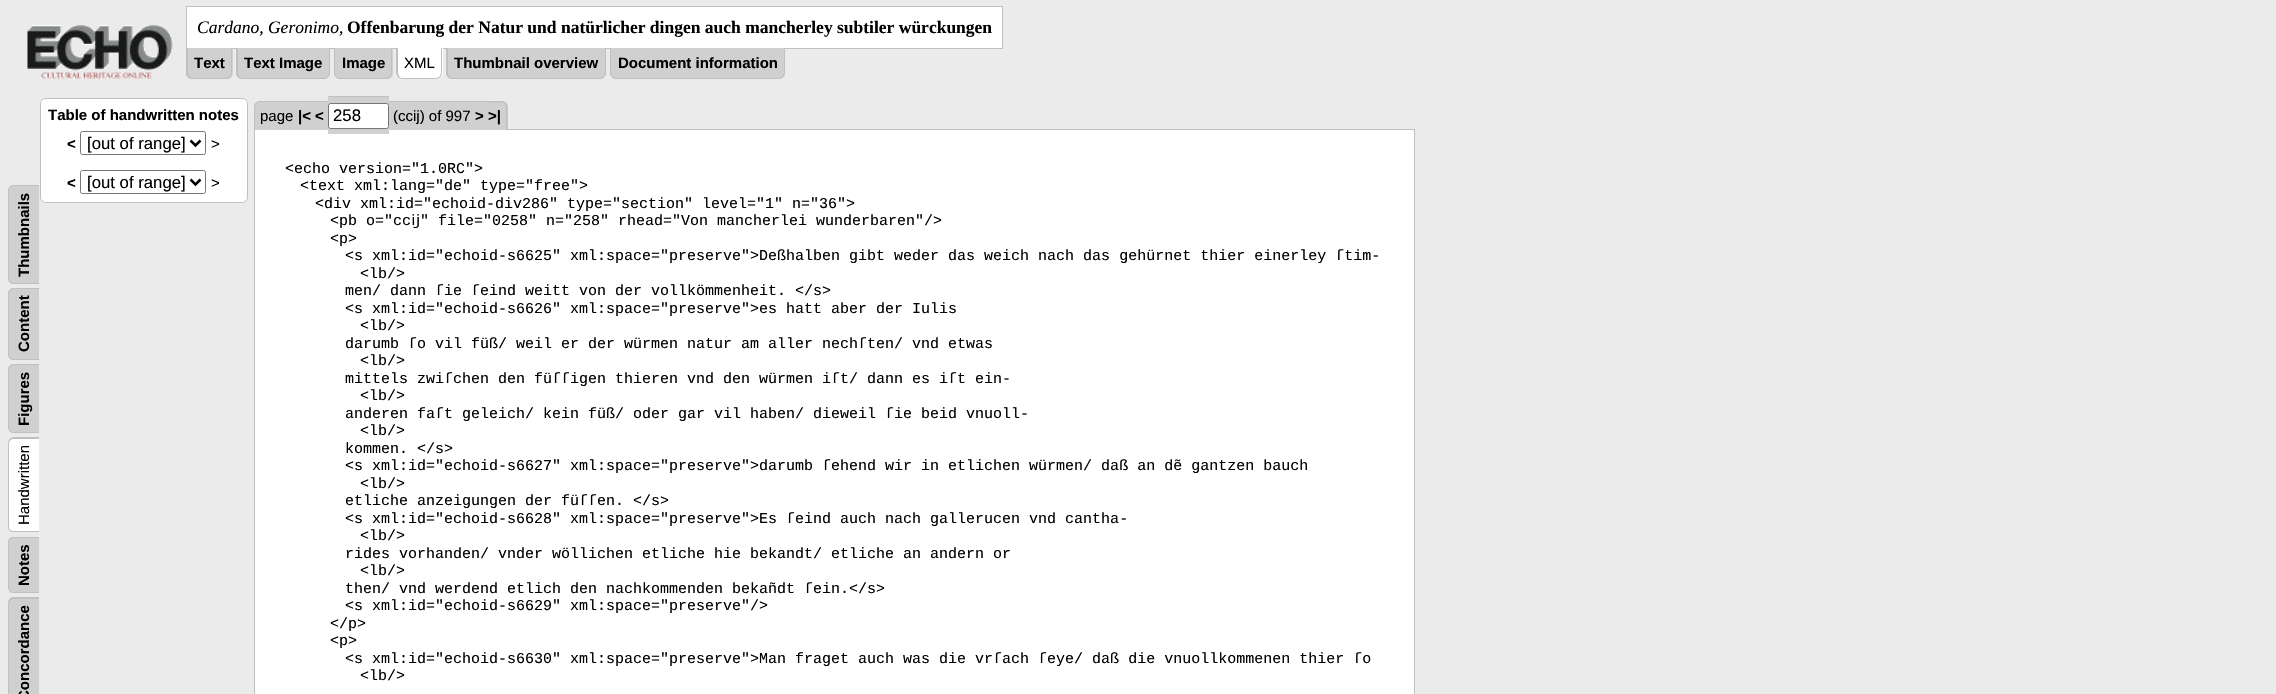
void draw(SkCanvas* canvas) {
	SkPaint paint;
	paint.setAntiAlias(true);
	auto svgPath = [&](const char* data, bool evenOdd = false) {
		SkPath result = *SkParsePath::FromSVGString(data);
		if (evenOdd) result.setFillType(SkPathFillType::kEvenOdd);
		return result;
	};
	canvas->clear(0xffebebeb);
	canvas->drawImageRect(SkImages::DeferredFromEncodedData(SkData::MakeFromFileName("img1.png")), SkRect::MakeXYWH(27, 25, 146, 54), SkSamplingOptions());
	paint.setColor(0xffffffff);
	canvas->drawRect(SkRect::MakeXYWH(186.5, 6.5, 816, 42), paint);
	paint.setStroke(true);
	paint.setStrokeWidth(1);
	paint.setColor(0xffc0c0c0);
	canvas->drawRect(SkRect::MakeXYWH(186.5, 6.5, 816, 42), paint);
	SkFont f1(fontMgr->matchFamilyStyle("Liberation Serif", SkFontStyle::Italic()), 17.5);
	f1.setSubpixel(true);
	paint.setStroke(false);
	paint.setColor(0xff000000);
	canvas->drawString("Cardano, Geronimo", 197, 33, f1, paint);
	SkFont f2(fontMgr->matchFamilyStyle("Liberation Serif", SkFontStyle::Normal()), 17.5);
	f2.setSubpixel(true);
	canvas->drawString(",", 339, 33, f2, paint);
	SkFont f3(fontMgr->matchFamilyStyle("Liberation Serif", SkFontStyle::Bold()), 17.5);
	f3.setSubpixel(true);
	canvas->drawString("Offenbarung der Natur und natürlicher dingen auch mancherley subtiler würckungen", 347, 33, f3, paint);
	paint.setColor(0xffd0d0d0);
	canvas->drawPath(svgPath("M186 48H233V73C233 76.5 230.5 79 227 79H192C188.5 79 186 76.5 186 73Z"), paint);
	paint.setColor(0xffc0c0c0);
	canvas->drawPath(svgPath("M186 48H232V72C232 76 230 79 226 79H192C189 79 186 76 186 72ZM188 48H231V72C231 75 229 78 226 78H192C190 78 188 75 188 72Z", true), paint);
	SkFont f4(fontMgr->matchFamilyStyle("Liberation Sans", SkFontStyle::Bold()), 15);
	f4.setSubpixel(true);
	paint.setColor(0xff000000);
	canvas->drawString("Text", 194, 68, f4, paint);
	paint.setColor(0xffd0d0d0);
	canvas->drawPath(svgPath("M236 48H330V73C330 76.5 327.5 79 324 79H242C238.5 79 236 76.5 236 73Z"), paint);
	paint.setColor(0xffc0c0c0);
	canvas->drawPath(svgPath("M236 48H330V72C330 76 327 79 324 79H242C239 79 236 76 236 72ZM238 48H329V72C329 75 327 78 324 78H242C240 78 238 75 238 72Z", true), paint);
	paint.setColor(0xff000000);
	canvas->drawString("Text Image", 244, 68, f4, paint);
	paint.setColor(0xffd0d0d0);
	canvas->drawPath(svgPath("M334 48H393V73C393 76.5 390.5 79 387 79H340C336.5 79 334 76.5 334 73Z"), paint);
	paint.setColor(0xffc0c0c0);
	canvas->drawPath(svgPath("M334 48H392V72C392 76 390 79 386 79H340C337 79 334 76 334 72ZM335 48H391V72C391 75 389 78 386 78H340C337 78 335 75 335 72Z", true), paint);
	paint.setColor(0xff000000);
	canvas->drawString("Image", 342, 68, f4, paint);
	paint.setColor(0xffffffff);
	canvas->drawPath(svgPath("M396 48H443V73C443 76.5 440.5 79 437 79H402C398.5 79 396 76.5 396 73Z"), paint);
	paint.setColor(0xffc0c0c0);
	canvas->drawPath(svgPath("M396 48H442V72C442 76 440 79 436 79H402C399 79 396 76 396 72ZM398 48H441V72C441 75 439 78 436 78H402C400 78 398 75 398 72Z", true), paint);
	SkFont f5(fontMgr->matchFamilyStyle("Liberation Sans", SkFontStyle::Normal()), 15);
	f5.setSubpixel(true);
	paint.setColor(0xff000000);
	canvas->drawString("XML", 404, 68, f5, paint);
	paint.setColor(0xffd0d0d0);
	canvas->drawPath(svgPath("M446 48H606V73C606 76.5 603.5 79 600 79H452C448.5 79 446 76.5 446 73Z"), paint);
	paint.setColor(0xffc0c0c0);
	canvas->drawPath(svgPath("M446 48H606V72C606 76 603 79 600 79H452C449 79 446 76 446 72ZM448 48H605V72C605 75 603 78 600 78H452C450 78 448 75 448 72Z", true), paint);
	paint.setColor(0xff000000);
	canvas->drawString("Thumbnail overview", 454, 68, f4, paint);
	paint.setColor(0xffd0d0d0);
	canvas->drawPath(svgPath("M610 48H785V73C785 76.5 782.5 79 779 79H616C612.5 79 610 76.5 610 73Z"), paint);
	paint.setColor(0xffc0c0c0);
	canvas->drawPath(svgPath("M610 48H785V72C785 76 782 79 779 79H616C613 79 610 76 610 72ZM611 48H784V72C784 75 782 78 779 78H616C613 78 611 75 611 72Z", true), paint);
	paint.setColor(0xff000000);
	canvas->drawString("Document information", 618, 68, f4, paint);
	paint.setColor(0xffffffff);
	canvas->drawRoundRect(SkRect::MakeXYWH(40.5, 98.5, 207, 104), 5.5, 5.5, paint);
	paint.setStroke(true);
	paint.setColor(0xffc0c0c0);
	canvas->drawRoundRect(SkRect::MakeXYWH(40.5, 98.5, 207, 104), 5.5, 5.5, paint);
	paint.setStroke(false);
	paint.setColor(0xff000000);
	canvas->drawString("Table of handwritten notes", 48, 120, f4, paint);
	canvas->drawString("<", 67, 149, f4, paint);
	paint.setStroke(true);
	paint.setColor(0xff767676);
	canvas->drawRoundRect(SkRect::MakeXYWH(80.5, 131.5, 125, 23), 2, 2, paint);
	paint.setStrokeWidth(2.5);
	paint.setColor(0xff000000);
	canvas->drawPath(svgPath("M190.5 140.5L195.5 145.5L200.5 140.5"), paint);
	SkFont f6(fontMgr->matchFamilyStyle("Liberation Sans", SkFontStyle::Normal()), 16.75);
	f6.setSubpixel(true);
	paint.setStroke(false);
	canvas->drawString("[out of range]", 87, 149, f6, paint);
	canvas->drawString(">", 211, 149, f5, paint);
	canvas->drawString("<", 67, 188, f4, paint);
	paint.setStroke(true);
	paint.setStrokeWidth(1);
	paint.setColor(0xff767676);
	canvas->drawRoundRect(SkRect::MakeXYWH(80.5, 170.5, 125, 23), 2, 2, paint);
	paint.setStrokeWidth(2.5);
	paint.setColor(0xff000000);
	canvas->drawPath(svgPath("M190.5 179.5L195.5 184.5L200.5 179.5"), paint);
	paint.setStroke(false);
	canvas->drawString("[out of range]", 87, 188, f6, paint);
	canvas->drawString(">", 211, 188, f5, paint);
	paint.setColor(0xffd0d0d0);
	canvas->drawPath(svgPath("M8 278V191C8 188 10 185 14 185H39V284H14C10 284 8 281 8 278Z"), paint);
	paint.setColor(0xffc0c0c0);
	canvas->drawPath(svgPath("M8 278V191C8 188 10 185 14 185H39V284H14C10 284 8 281 8 278ZM9 278V191C9 188 11 186 14 186H39V283H14C11 283 9 281 9 278Z", true), paint);
	paint.setColor(0xff000000);
	canvas->save();
	canvas->rotate(-90, 29, 277);
	canvas->drawString("Thumbnails", 29, 277, f4, paint);
	canvas->restore();
	paint.setColor(0xffd0d0d0);
	canvas->drawPath(svgPath("M8 354V294C8 291 10 288 14 288H39V360H14C10 360 8 357 8 354Z"), paint);
	paint.setColor(0xffc0c0c0);
	canvas->drawPath(svgPath("M8 354V294C8 291 10 288 14 288H39V360H14C10 360 8 357 8 354ZM9 354V294C9 292 11 289 14 289H39V359H14C11 359 9 356 9 354Z", true), paint);
	paint.setColor(0xff000000);
	canvas->save();
	canvas->rotate(-90, 29, 352);
	canvas->drawString("Content", 29, 352, f4, paint);
	canvas->restore();
	paint.setColor(0xffd0d0d0);
	canvas->drawPath(svgPath("M8 427V370C8 367 10 364 14 364H39V433H14C10 433 8 430 8 427Z"), paint);
	paint.setColor(0xffc0c0c0);
	canvas->drawPath(svgPath("M8 427V370C8 367 10 364 14 364H39V433H14C10 433 8 430 8 427ZM9 427V370C9 368 11 365 14 365H39V432H14C11 432 9 430 9 427Z", true), paint);
	paint.setColor(0xff000000);
	canvas->save();
	canvas->rotate(-90, 29, 426);
	canvas->drawString("Figures", 29, 426, f4, paint);
	canvas->restore();
	paint.setColor(0xffffffff);
	canvas->drawPath(svgPath("M8 526V444C8 440 10 437 14 437H39V532H14C10 532 8 530 8 526Z"), paint);
	paint.setColor(0xffc0c0c0);
	canvas->drawPath(svgPath("M8 526V444C8 440 10 437 14 437H39V532H14C10 532 8 530 8 526ZM9 526V444C9 441 11 439 14 439H39V531H14C11 531 9 529 9 526Z", true), paint);
	paint.setColor(0xff000000);
	canvas->save();
	canvas->rotate(-90, 29, 525);
	canvas->drawString("Handwritten", 29, 525, f5, paint);
	canvas->restore();
	paint.setColor(0xffd0d0d0);
	canvas->drawPath(svgPath("M8 587V543C8 539 10 537 14 537H39V593H14C10 593 8 590 8 587Z"), paint);
	paint.setColor(0xffc0c0c0);
	canvas->drawPath(svgPath("M8 587V543C8 539 10 537 14 537H39V593H14C10 593 8 590 8 587ZM9 587V543C9 540 11 538 14 538H39V592H14C11 592 9 590 9 587Z", true), paint);
	paint.setColor(0xff000000);
	canvas->save();
	canvas->rotate(-90, 29, 586);
	canvas->drawString("Notes", 29, 586, f4, paint);
	canvas->restore();
	paint.setColor(0xffd0d0d0);
	canvas->drawPath(svgPath("M8 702V604C8 600 10 597 14 597H39V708H14C10 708 8 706 8 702Z"), paint);
	paint.setColor(0xffc0c0c0);
	canvas->drawPath(svgPath("M8 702V604C8 600 10 597 14 597H39V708H14C10 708 8 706 8 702ZM9 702V604C9 601 11 599 14 599H39V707H14C11 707 9 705 9 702Z", true), paint);
	paint.setColor(0xff000000);
	canvas->save();
	canvas->rotate(-90, 29, 701);
	canvas->drawString("Concordance", 29, 701, f4, paint);
	canvas->restore();
	paint.setColor(0xffffffff);
	canvas->drawRect(SkRect::MakeXYWH(254.5, 129.5, 1160, 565), paint);
	paint.setStroke(true);
	paint.setStrokeWidth(1);
	paint.setColor(0xffc0c0c0);
	canvas->drawRect(SkRect::MakeXYWH(254.5, 129.5, 1160, 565), paint);
	paint.setStroke(false);
	paint.setColor(0xffd0d0d0);
	canvas->drawPath(svgPath("M260 101H298V130H254V107C254 103.5 256.5 101 260 101Z"), paint);
	paint.setColor(0xffc0c0c0);
	canvas->drawPath(svgPath("M260 101H298V130H254V108C254 104 257 101 260 101ZM260 102H298V130H255V108C255 105 257 102 260 102Z", true), paint);
	paint.setColor(0xffd0d0d0);
	canvas->drawRect(SkRect::MakeXYWH(298, 102, 13, 28), paint);
	paint.setColor(0xffc0c0c0);
	canvas->drawRect(SkRect::MakeXYWH(298, 101, 13, 1), paint);
	paint.setColor(0xffd0d0d0);
	canvas->drawRect(SkRect::MakeXYWH(311, 101, 4, 29), paint);
	paint.setColor(0xffc0c0c0);
	canvas->drawRect(SkRect::MakeXYWH(311, 101, 13, 1), paint);
	paint.setColor(0xffd0d0d0);
	canvas->drawRect(SkRect::MakeXYWH(315, 102, 9, 28), paint);
	canvas->drawRect(SkRect::MakeXYWH(324, 101, 4, 29), paint);
	paint.setColor(0xffc0c0c0);
	canvas->drawRect(SkRect::MakeXYWH(324, 101, 4, 1), paint);
	paint.setColor(0xffd0d0d0);
	canvas->drawRect(SkRect::MakeXYWH(328, 97, 61, 37), paint);
	paint.setColor(0xffc0c0c0);
	canvas->drawRect(SkRect::MakeXYWH(328, 96, 61, 1), paint);
	paint.setColor(0xffd0d0d0);
	canvas->drawRect(SkRect::MakeXYWH(389, 101, 5, 29), paint);
	paint.setColor(0xffc0c0c0);
	canvas->drawRect(SkRect::MakeXYWH(389, 101, 95, 1), paint);
	paint.setColor(0xffd0d0d0);
	canvas->drawRect(SkRect::MakeXYWH(394, 102, 90, 28), paint);
	canvas->drawRect(SkRect::MakeXYWH(484, 101, 4, 29), paint);
	paint.setColor(0xffc0c0c0);
	canvas->drawRect(SkRect::MakeXYWH(484, 101, 4, 1), paint);
	paint.setColor(0xffd0d0d0);
	canvas->drawPath(svgPath("M488 101H502C505.5 101 508 103.5 508 107V130H488Z"), paint);
	paint.setColor(0xffc0c0c0);
	canvas->drawPath(svgPath("M487.5 101H501C504.5 101 507.5 104 507.5 107.5V130H487.5ZM487.5 102.5H501C504 102.5 506 104.5 506 107.5V130H487.5Z", true), paint);
	paint.setColor(0xff000000);
	canvas->drawString("page", 260, 121, f5, paint);
	canvas->drawString("|< <", 298, 121, f4, paint);
	paint.setColor(0xffffffff);
	canvas->drawRoundRect(SkRect::MakeXYWH(328.5, 103.5, 60, 25), 2, 2, paint);
	paint.setStroke(true);
	paint.setColor(0xff767676);
	canvas->drawRoundRect(SkRect::MakeXYWH(328.5, 103.5, 60, 25), 2, 2, paint);
	paint.setStroke(false);
	paint.setColor(0xff000000);
	canvas->drawString("258", 333, 121, f6, paint);
	canvas->drawString("(ccĳ) of 997", 393, 121, f5, paint);
	canvas->drawString("> >|", 475, 121, f4, paint);
	SkFont f7(fontMgr->matchFamilyStyle("Liberation Mono", SkFontStyle::Normal()), 15);
	f7.setSubpixel(true);
	canvas->drawString("<echo version=\"1.0RC\">", 285, 173, f7, paint);
	canvas->drawString("<text xml:lang=\"de\" type=\"free\">", 300, 190, f7, paint);
	canvas->drawString("<div xml:id=\"echoid-div286\" type=\"section\" level=\"1\" n=\"36\">", 315, 208, f7, paint);
	canvas->drawString("<pb o=\"ccĳ\" file=\"0258\" n=\"258\" rhead=\"Von mancherlei wunderbaren\"/>", 330, 225, f7, paint);
	canvas->drawString("<p>", 330, 243, f7, paint);
	canvas->drawString("<s xml:id=\"echoid-s6625\" xml:space=\"preserve\">Deßhalben gibt weder das weich nach das gehürnet thier einerley ſtim-", 345, 260, f7, paint);
	canvas->drawString("<lb/>", 360, 278, f7, paint);
	canvas->drawString("men/ dann ſie ſeind weitt von der vollkömmenheit. </s>", 345, 295, f7, paint);
	canvas->drawString("<s xml:id=\"echoid-s6626\" xml:space=\"preserve\">es hatt aber der Iulis", 345, 313, f7, paint);
	canvas->drawString("<lb/>", 360, 330, f7, paint);
	canvas->drawString("darumb ſo vil füß/ weil er der würmen natur am aller nechſten/ vnd etwas", 345, 348, f7, paint);
	canvas->drawString("<lb/>", 360, 365, f7, paint);
	canvas->drawString("mittels zwiſchen den füſſigen thieren vnd den würmen iſt/ dann es iſt ein-", 345, 383, f7, paint);
	canvas->drawString("<lb/>", 360, 400, f7, paint);
	canvas->drawString("anderen faſt geleich/ kein füß/ oder gar vil haben/ dieweil ſie beid vnuoll-", 345, 418, f7, paint);
	canvas->drawString("<lb/>", 360, 435, f7, paint);
	canvas->drawString("kommen. </s>", 345, 453, f7, paint);
	canvas->drawString("<s xml:id=\"echoid-s6627\" xml:space=\"preserve\">darumb ſehend wir in etlichen würmen/ daß an dẽ gantzen bauch", 345, 470, f7, paint);
	canvas->drawString("<lb/>", 360, 488, f7, paint);
	canvas->drawString("etliche anzeigungen der füſſen. </s>", 345, 505, f7, paint);
	canvas->drawString("<s xml:id=\"echoid-s6628\" xml:space=\"preserve\">Es ſeind auch nach gallerucen vnd cantha-", 345, 523, f7, paint);
	canvas->drawString("<lb/>", 360, 540, f7, paint);
	canvas->drawString("rides vorhanden/ vnder wöllichen etliche hie bekandt/ etliche an andern or", 345, 558, f7, paint);
	canvas->drawString("<lb/>", 360, 575, f7, paint);
	canvas->drawString("then/ vnd werdend etlich den nachkommenden bekañdt ſein.</s>", 345, 593, f7, paint);
	canvas->drawString("<s xml:id=\"echoid-s6629\" xml:space=\"preserve\"/>", 345, 610, f7, paint);
	canvas->drawString("</p>", 330, 628, f7, paint);
	canvas->drawString("<p>", 330, 645, f7, paint);
	canvas->drawString("<s xml:id=\"echoid-s6630\" xml:space=\"preserve\">Man fraget auch was die vrſach ſeye/ daß die vnuollkommenen thier ſo", 345, 663, f7, paint);
	canvas->drawString("<lb/>", 360, 680, f7, paint);
}
